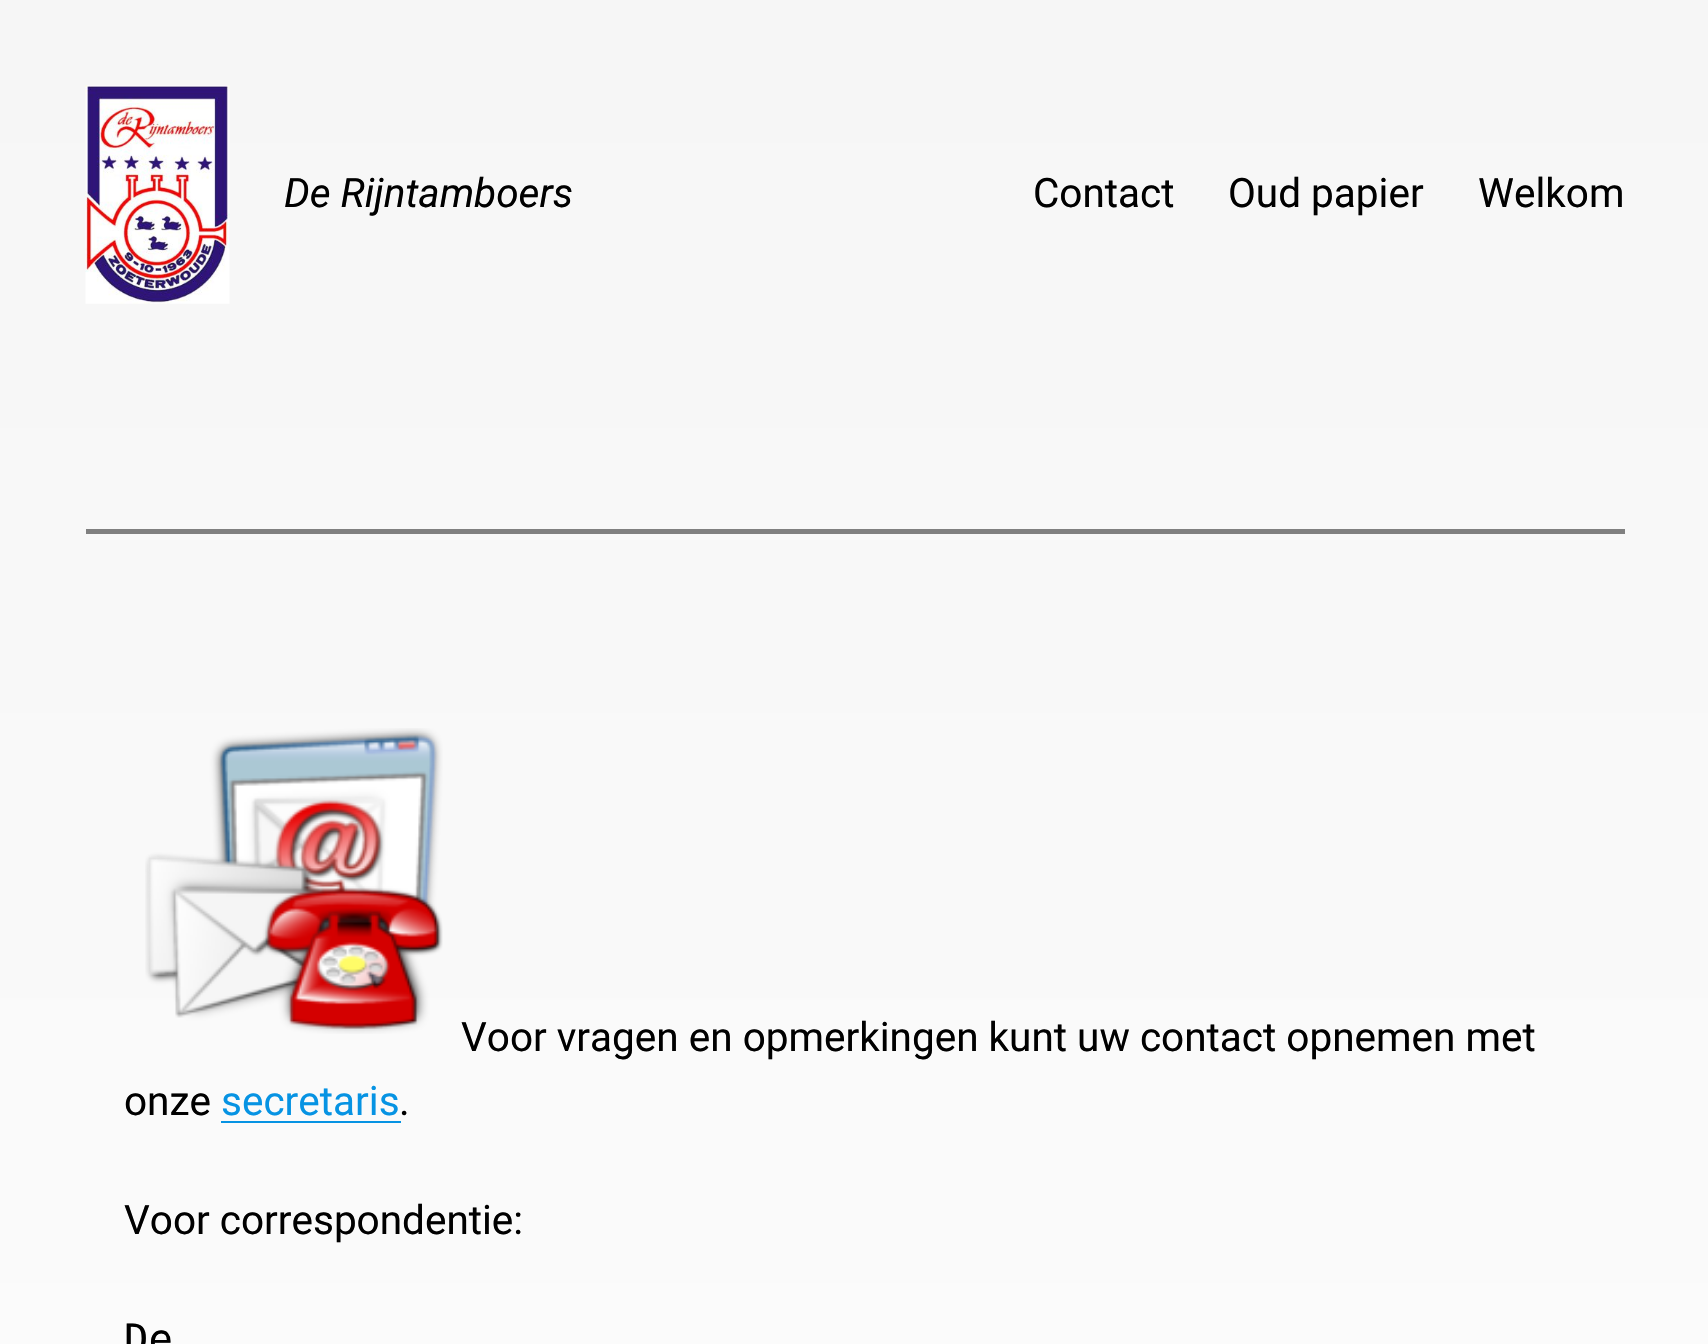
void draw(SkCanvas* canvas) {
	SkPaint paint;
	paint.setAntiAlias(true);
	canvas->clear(0xffffffff);
	{
		const SkColor colors[] = {0xfff6f6f6, 0xffffffff};
		const float stops[] = {0, 1};
		const SkPoint ends[] = {{855, 0}, {855, 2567}};
		paint.setShader(SkGradientShader::MakeLinear(ends, colors, stops, 2, SkTileMode::kClamp));
		paint.setAlpha(255);
	}
	canvas->drawRect(SkRect::MakeXYWH(0, 0, 1708, 1344), paint);
	canvas->drawImageRect(SkImages::DeferredFromEncodedData(SkData::MakeFromFileName("img1.png")), SkRect::MakeXYWH(85, 85, 145, 219), SkSamplingOptions());
	SkFont f1(fontMgr->matchFamilyStyle("Roboto", SkFontStyle::Italic()), 40.5);
	f1.setSubpixel(true);
	paint.setShader(nullptr);
	paint.setColor(0xff000000);
	canvas->drawString("De Rijntamboers", 284, 207, f1, paint);
	SkFont f2(fontMgr->matchFamilyStyle("Roboto", SkFontStyle::Normal()), 40.5);
	f2.setSubpixel(true);
	canvas->drawString("Contact", 1033, 207, f2, paint);
	canvas->drawString("Oud papier", 1228, 207, f2, paint);
	canvas->drawString("Welkom", 1478, 207, f2, paint);
	paint.setColor(0xff808080);
	canvas->drawRect(SkRect::MakeXYWH(86, 529, 1539, 5), paint);
	canvas->drawImageRect(SkImages::DeferredFromEncodedData(SkData::MakeFromFileName("img2.png")), SkRect::MakeXYWH(145, 728, 298, 306), SkSamplingOptions());
	paint.setColor(0xff000000);
	canvas->drawString("Voor vragen en opmerkingen kunt uw contact opnemen met", 461, 1051, f2, paint);
	canvas->drawString("onze", 124, 1115, f2, paint);
	paint.setColor(0xff0693e3);
	canvas->drawString("secretaris", 221, 1115, f2, paint);
	canvas->drawRect(SkRect::MakeXYWH(221, 1121, 180, 2), paint);
	paint.setColor(0xff000000);
	canvas->drawString(".", 399, 1115, f2, paint);
	canvas->drawString("Voor correspondentie:", 124, 1234, f2, paint);
	SkFont f3(fontMgr->matchFamilyStyle("DejaVu Sans Mono", SkFontStyle::Normal()), 40.5);
	f3.setSubpixel(true);
	canvas->drawString("De", 124, 1353, f3, paint);
}
